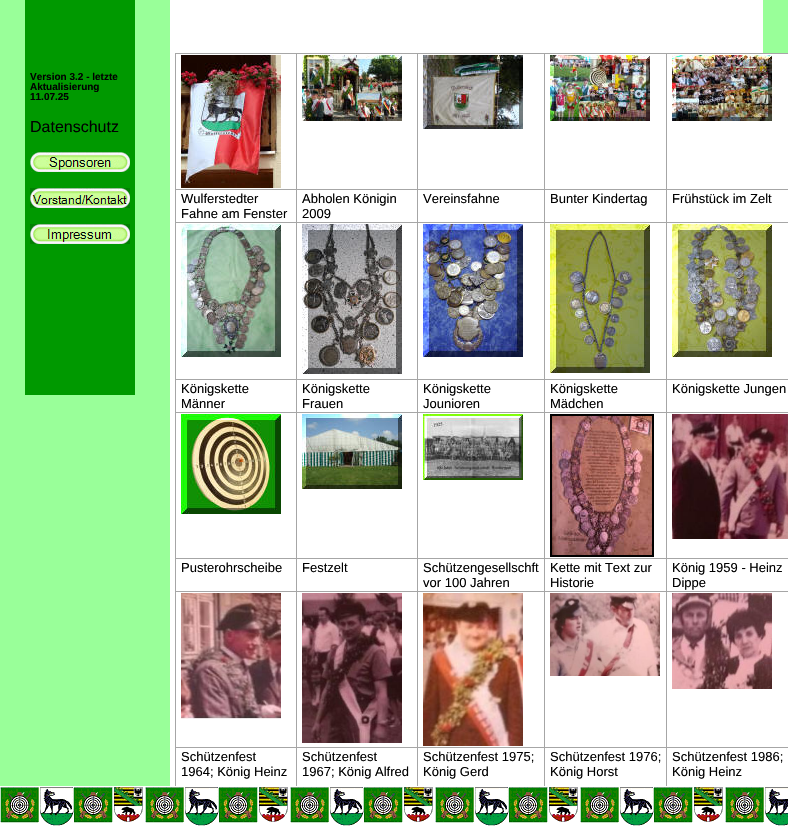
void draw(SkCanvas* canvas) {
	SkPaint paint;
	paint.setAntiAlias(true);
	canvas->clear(0xff99ff99);
	paint.setColor(0xff009900);
	canvas->drawRect(SkRect::MakeXYWH(25, 0, 110, 395), paint);
	SkFont f1(fontMgr->matchFamilyStyle("Liberation Sans", SkFontStyle::Bold()), 10);
	f1.setSubpixel(true);
	paint.setColor(0xff000000);
	canvas->drawString("Version 3.2 - letzte", 30, 80, f1, paint);
	canvas->drawString("Aktualisierung", 30, 90, f1, paint);
	canvas->drawString("11.07.25", 30, 100, f1, paint);
	SkFont f2(fontMgr->matchFamilyStyle("Liberation Sans", SkFontStyle::Normal()), 16);
	f2.setSubpixel(true);
	canvas->drawString("Datenschutz", 30, 132, f2, paint);
	canvas->drawImageRect(SkImages::DeferredFromEncodedData(SkData::MakeFromFileName("img1.png")), SkRect::MakeXYWH(30, 152, 100, 20), SkSamplingOptions());
	canvas->drawImageRect(SkImages::DeferredFromEncodedData(SkData::MakeFromFileName("img2.png")), SkRect::MakeXYWH(30, 188, 100, 20), SkSamplingOptions());
	canvas->drawImageRect(SkImages::DeferredFromEncodedData(SkData::MakeFromFileName("img3.png")), SkRect::MakeXYWH(30, 224, 100, 20), SkSamplingOptions());
	paint.setColor(0xffffffff);
	canvas->drawRect(SkRect::MakeXYWH(170, 0, 593, 786), paint);
	canvas->drawRect(SkRect::MakeXYWH(763, 54, 25, 732), paint);
	paint.setColor(0xffa6a6a6);
	canvas->drawRect(SkRect::MakeXYWH(666, 53, 122, 1), paint);
	canvas->drawRect(SkRect::MakeXYWH(666, 189, 122, 1), paint);
	canvas->drawRect(SkRect::MakeXYWH(666, 222, 122, 1), paint);
	canvas->drawRect(SkRect::MakeXYWH(666, 379, 122, 1), paint);
	canvas->drawRect(SkRect::MakeXYWH(666, 412, 122, 1), paint);
	canvas->drawRect(SkRect::MakeXYWH(666, 558, 122, 1), paint);
	canvas->drawRect(SkRect::MakeXYWH(666, 591, 122, 1), paint);
	canvas->drawRect(SkRect::MakeXYWH(666, 747, 122, 1), paint);
	canvas->drawRect(SkRect::MakeXYWH(666, 747, 1, 39), paint);
	canvas->drawRect(SkRect::MakeXYWH(544, 747, 123, 1), paint);
	canvas->drawRect(SkRect::MakeXYWH(666, 591, 1, 157), paint);
	canvas->drawRect(SkRect::MakeXYWH(544, 591, 123, 1), paint);
	canvas->drawRect(SkRect::MakeXYWH(666, 558, 1, 34), paint);
	canvas->drawRect(SkRect::MakeXYWH(544, 558, 123, 1), paint);
	canvas->drawRect(SkRect::MakeXYWH(666, 412, 1, 147), paint);
	canvas->drawRect(SkRect::MakeXYWH(544, 412, 123, 1), paint);
	canvas->drawRect(SkRect::MakeXYWH(666, 379, 1, 34), paint);
	canvas->drawRect(SkRect::MakeXYWH(544, 379, 123, 1), paint);
	canvas->drawRect(SkRect::MakeXYWH(666, 222, 1, 158), paint);
	canvas->drawRect(SkRect::MakeXYWH(544, 222, 123, 1), paint);
	canvas->drawRect(SkRect::MakeXYWH(666, 189, 1, 34), paint);
	canvas->drawRect(SkRect::MakeXYWH(544, 189, 123, 1), paint);
	canvas->drawRect(SkRect::MakeXYWH(666, 53, 1, 137), paint);
	canvas->drawRect(SkRect::MakeXYWH(544, 53, 123, 1), paint);
	canvas->drawRect(SkRect::MakeXYWH(544, 747, 1, 39), paint);
	canvas->drawRect(SkRect::MakeXYWH(417, 747, 128, 1), paint);
	canvas->drawRect(SkRect::MakeXYWH(544, 591, 1, 157), paint);
	canvas->drawRect(SkRect::MakeXYWH(417, 591, 128, 1), paint);
	canvas->drawRect(SkRect::MakeXYWH(544, 558, 1, 34), paint);
	canvas->drawRect(SkRect::MakeXYWH(417, 558, 128, 1), paint);
	canvas->drawRect(SkRect::MakeXYWH(544, 412, 1, 147), paint);
	canvas->drawRect(SkRect::MakeXYWH(417, 412, 128, 1), paint);
	canvas->drawRect(SkRect::MakeXYWH(544, 379, 1, 34), paint);
	canvas->drawRect(SkRect::MakeXYWH(417, 379, 128, 1), paint);
	canvas->drawRect(SkRect::MakeXYWH(544, 222, 1, 158), paint);
	canvas->drawRect(SkRect::MakeXYWH(417, 222, 128, 1), paint);
	canvas->drawRect(SkRect::MakeXYWH(544, 189, 1, 34), paint);
	canvas->drawRect(SkRect::MakeXYWH(417, 189, 128, 1), paint);
	canvas->drawRect(SkRect::MakeXYWH(544, 53, 1, 137), paint);
	canvas->drawRect(SkRect::MakeXYWH(417, 53, 128, 1), paint);
	canvas->drawRect(SkRect::MakeXYWH(417, 747, 1, 39), paint);
	canvas->drawRect(SkRect::MakeXYWH(296, 747, 122, 1), paint);
	canvas->drawRect(SkRect::MakeXYWH(417, 591, 1, 157), paint);
	canvas->drawRect(SkRect::MakeXYWH(296, 591, 122, 1), paint);
	canvas->drawRect(SkRect::MakeXYWH(417, 558, 1, 34), paint);
	canvas->drawRect(SkRect::MakeXYWH(296, 558, 122, 1), paint);
	canvas->drawRect(SkRect::MakeXYWH(417, 412, 1, 147), paint);
	canvas->drawRect(SkRect::MakeXYWH(296, 412, 122, 1), paint);
	canvas->drawRect(SkRect::MakeXYWH(417, 379, 1, 34), paint);
	canvas->drawRect(SkRect::MakeXYWH(296, 379, 122, 1), paint);
	canvas->drawRect(SkRect::MakeXYWH(417, 222, 1, 158), paint);
	canvas->drawRect(SkRect::MakeXYWH(296, 222, 122, 1), paint);
	canvas->drawRect(SkRect::MakeXYWH(417, 189, 1, 34), paint);
	canvas->drawRect(SkRect::MakeXYWH(296, 189, 122, 1), paint);
	canvas->drawRect(SkRect::MakeXYWH(417, 53, 1, 137), paint);
	canvas->drawRect(SkRect::MakeXYWH(296, 53, 122, 1), paint);
	canvas->drawRect(SkRect::MakeXYWH(296, 747, 1, 39), paint);
	canvas->drawRect(SkRect::MakeXYWH(175, 747, 122, 1), paint);
	canvas->drawRect(SkRect::MakeXYWH(296, 591, 1, 157), paint);
	canvas->drawRect(SkRect::MakeXYWH(175, 591, 122, 1), paint);
	canvas->drawRect(SkRect::MakeXYWH(296, 558, 1, 34), paint);
	canvas->drawRect(SkRect::MakeXYWH(175, 558, 122, 1), paint);
	canvas->drawRect(SkRect::MakeXYWH(296, 412, 1, 147), paint);
	canvas->drawRect(SkRect::MakeXYWH(175, 412, 122, 1), paint);
	canvas->drawRect(SkRect::MakeXYWH(296, 379, 1, 34), paint);
	canvas->drawRect(SkRect::MakeXYWH(175, 379, 122, 1), paint);
	canvas->drawRect(SkRect::MakeXYWH(296, 222, 1, 158), paint);
	canvas->drawRect(SkRect::MakeXYWH(175, 222, 122, 1), paint);
	canvas->drawRect(SkRect::MakeXYWH(296, 189, 1, 34), paint);
	canvas->drawRect(SkRect::MakeXYWH(175, 189, 122, 1), paint);
	canvas->drawRect(SkRect::MakeXYWH(296, 53, 1, 137), paint);
	canvas->drawRect(SkRect::MakeXYWH(175, 53, 122, 1), paint);
	canvas->drawRect(SkRect::MakeXYWH(175, 747, 1, 39), paint);
	canvas->drawRect(SkRect::MakeXYWH(175, 591, 1, 157), paint);
	canvas->drawRect(SkRect::MakeXYWH(175, 558, 1, 34), paint);
	canvas->drawRect(SkRect::MakeXYWH(175, 412, 1, 147), paint);
	canvas->drawRect(SkRect::MakeXYWH(175, 379, 1, 34), paint);
	canvas->drawRect(SkRect::MakeXYWH(175, 222, 1, 158), paint);
	canvas->drawRect(SkRect::MakeXYWH(175, 189, 1, 34), paint);
	canvas->drawRect(SkRect::MakeXYWH(175, 53, 1, 137), paint);
	canvas->drawImageRect(SkImages::DeferredFromEncodedData(SkData::MakeFromFileName("img4.png")), SkRect::MakeXYWH(181, 55, 100, 133), SkSamplingOptions());
	canvas->drawImageRect(SkImages::DeferredFromEncodedData(SkData::MakeFromFileName("img5.png")), SkRect::MakeXYWH(302, 55, 100, 66), SkSamplingOptions());
	canvas->drawImageRect(SkImages::DeferredFromEncodedData(SkData::MakeFromFileName("img6.png")), SkRect::MakeXYWH(423, 55, 100, 74), SkSamplingOptions());
	canvas->drawImageRect(SkImages::DeferredFromEncodedData(SkData::MakeFromFileName("img7.png")), SkRect::MakeXYWH(550, 55, 100, 66), SkSamplingOptions());
	canvas->drawImageRect(SkImages::DeferredFromEncodedData(SkData::MakeFromFileName("img8.png")), SkRect::MakeXYWH(672, 55, 100, 66), SkSamplingOptions());
	SkFont f3(fontMgr->matchFamilyStyle("Liberation Sans", SkFontStyle::Normal()), 13);
	f3.setSubpixel(true);
	paint.setColor(0xff000000);
	canvas->drawString("Wulferstedter", 181, 203, f3, paint);
	canvas->drawString("Fahne am Fenster", 181, 218, f3, paint);
	canvas->drawString("Abholen Königin", 302, 203, f3, paint);
	canvas->drawString("2009", 302, 218, f3, paint);
	canvas->drawString("Vereinsfahne", 423, 203, f3, paint);
	canvas->drawString("Bunter Kindertag", 550, 203, f3, paint);
	canvas->drawString("Frühstück im Zelt", 672, 203, f3, paint);
	canvas->drawImageRect(SkImages::DeferredFromEncodedData(SkData::MakeFromFileName("img9.png")), SkRect::MakeXYWH(181, 224, 100, 133), SkSamplingOptions());
	canvas->drawImageRect(SkImages::DeferredFromEncodedData(SkData::MakeFromFileName("img10.png")), SkRect::MakeXYWH(302, 224, 100, 150), SkSamplingOptions());
	canvas->drawImageRect(SkImages::DeferredFromEncodedData(SkData::MakeFromFileName("img11.png")), SkRect::MakeXYWH(423, 224, 100, 133), SkSamplingOptions());
	canvas->drawImageRect(SkImages::DeferredFromEncodedData(SkData::MakeFromFileName("img12.png")), SkRect::MakeXYWH(550, 224, 100, 149), SkSamplingOptions());
	canvas->drawImageRect(SkImages::DeferredFromEncodedData(SkData::MakeFromFileName("img13.png")), SkRect::MakeXYWH(672, 224, 100, 133), SkSamplingOptions());
	canvas->drawString("Königskette", 181, 393, f3, paint);
	canvas->drawString("Männer", 181, 408, f3, paint);
	canvas->drawString("Königskette", 302, 393, f3, paint);
	canvas->drawString("Frauen", 302, 408, f3, paint);
	canvas->drawString("Königskette", 423, 393, f3, paint);
	canvas->drawString("Jounioren", 423, 408, f3, paint);
	canvas->drawString("Königskette", 550, 393, f3, paint);
	canvas->drawString("Mädchen", 550, 408, f3, paint);
	canvas->drawString("Königskette Jungen", 672, 393, f3, paint);
	canvas->drawImageRect(SkImages::DeferredFromEncodedData(SkData::MakeFromFileName("img14.png")), SkRect::MakeXYWH(181, 414, 100, 100), SkSamplingOptions());
	canvas->drawImageRect(SkImages::DeferredFromEncodedData(SkData::MakeFromFileName("img15.png")), SkRect::MakeXYWH(302, 414, 100, 75), SkSamplingOptions());
	canvas->drawImageRect(SkImages::DeferredFromEncodedData(SkData::MakeFromFileName("img16.png")), SkRect::MakeXYWH(423, 414, 100, 66), SkSamplingOptions());
	paint.setStroke(true);
	paint.setStrokeWidth(2);
	canvas->drawRect(SkRect::MakeXYWH(551, 415, 102, 141), paint);
	canvas->drawImageRect(SkImages::DeferredFromEncodedData(SkData::MakeFromFileName("img17.png")), SkRect::MakeXYWH(552, 416, 100, 139), SkSamplingOptions());
	canvas->drawImageRect(SkImages::DeferredFromEncodedData(SkData::MakeFromFileName("img18.png")), SkRect::MakeXYWH(672, 414, 116, 125), SkSamplingOptions());
	paint.setStroke(false);
	canvas->drawString("Pusterohrscheibe", 181, 572, f3, paint);
	canvas->drawString("Festzelt", 302, 572, f3, paint);
	canvas->drawString("Schützengesellschft", 423, 572, f3, paint);
	canvas->drawString("vor 100 Jahren", 423, 587, f3, paint);
	canvas->drawString("Kette mit Text zur", 550, 572, f3, paint);
	canvas->drawString("Historie", 550, 587, f3, paint);
	canvas->drawString("König 1959 - Heinz", 672, 572, f3, paint);
	canvas->drawString("Dippe", 672, 587, f3, paint);
	canvas->drawImageRect(SkImages::DeferredFromEncodedData(SkData::MakeFromFileName("img19.png")), SkRect::MakeXYWH(181, 593, 100, 126), SkSamplingOptions());
	canvas->drawImageRect(SkImages::DeferredFromEncodedData(SkData::MakeFromFileName("img20.png")), SkRect::MakeXYWH(302, 593, 100, 150), SkSamplingOptions());
	canvas->drawImageRect(SkImages::DeferredFromEncodedData(SkData::MakeFromFileName("img21.png")), SkRect::MakeXYWH(423, 593, 100, 153), SkSamplingOptions());
	canvas->drawImageRect(SkImages::DeferredFromEncodedData(SkData::MakeFromFileName("img22.png")), SkRect::MakeXYWH(550, 593, 110, 83), SkSamplingOptions());
	canvas->drawImageRect(SkImages::DeferredFromEncodedData(SkData::MakeFromFileName("img23.png")), SkRect::MakeXYWH(672, 593, 100, 96), SkSamplingOptions());
	canvas->drawString("Schützenfest", 181, 761, f3, paint);
	canvas->drawString("1964; König Heinz", 181, 776, f3, paint);
	canvas->drawString("Schützenfest", 302, 761, f3, paint);
	canvas->drawString("1967; König Alfred", 302, 776, f3, paint);
	canvas->drawString("Schützenfest 1975;", 423, 761, f3, paint);
	canvas->drawString("König Gerd", 423, 776, f3, paint);
	canvas->drawString("Schützenfest 1976;", 550, 761, f3, paint);
	canvas->drawString("König Horst", 550, 776, f3, paint);
	canvas->drawString("Schützenfest 1986;", 672, 761, f3, paint);
	canvas->drawString("König Heinz", 672, 776, f3, paint);
	canvas->drawImageRect(SkImages::DeferredFromEncodedData(SkData::MakeFromFileName("img24.png")), SkRect::MakeXYWH(0, 786, 788, 40), SkSamplingOptions());
}
